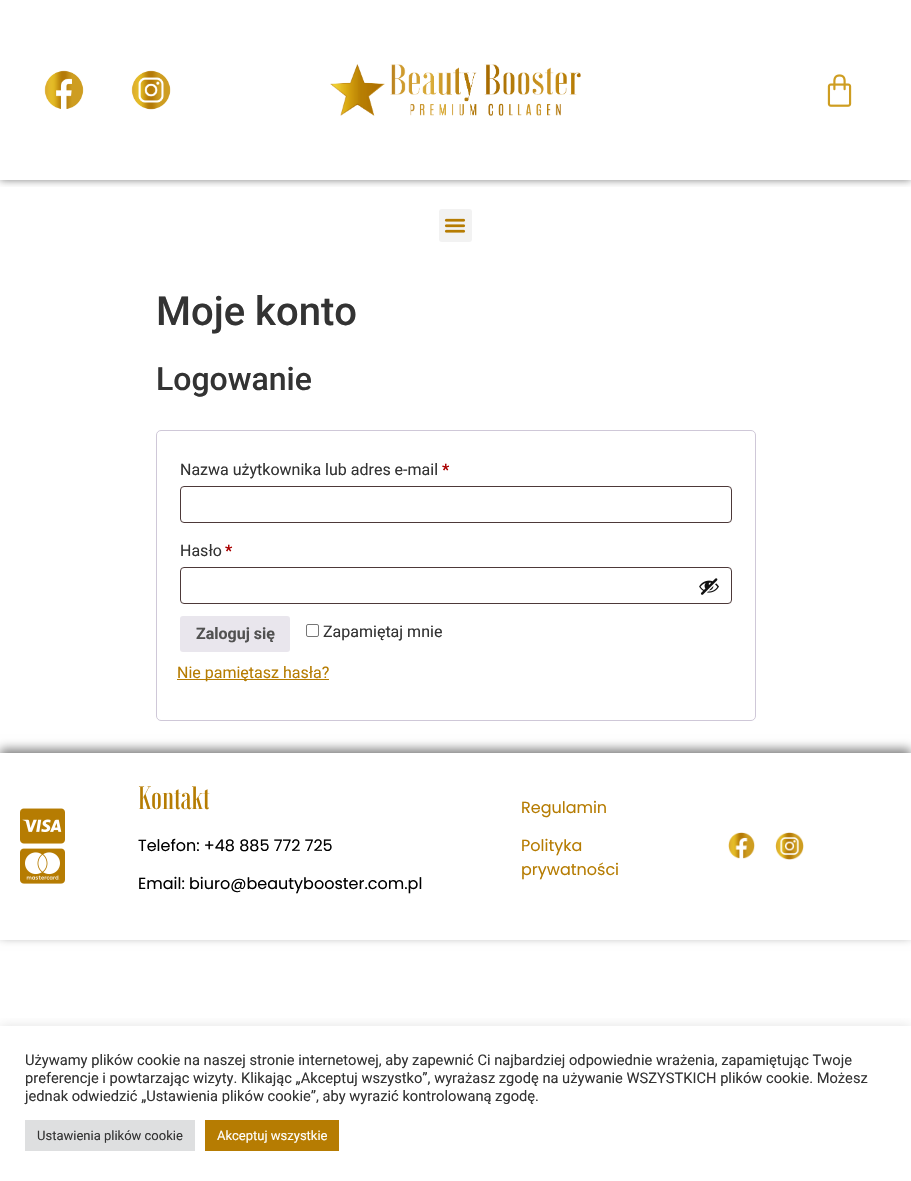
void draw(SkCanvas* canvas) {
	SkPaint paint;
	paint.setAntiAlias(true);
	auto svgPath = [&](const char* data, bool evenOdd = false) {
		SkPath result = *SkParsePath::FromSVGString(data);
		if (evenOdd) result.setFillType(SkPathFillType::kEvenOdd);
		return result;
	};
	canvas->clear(0xffffffff);
	canvas->save();
	canvas->clipRect(SkRect::MakeXYWH(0, 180, 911, 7));
	paint.setColor(0x80000000);
	paint.setMaskFilter(SkMaskFilter::MakeBlur(kNormal_SkBlurStyle, 4));
	canvas->drawRect(SkRect::MakeXYWH(0, 0, 911, 180), paint);
	paint.setMaskFilter(nullptr);
	canvas->restore();
	canvas->drawImageRect(SkImages::DeferredFromEncodedData(SkData::MakeFromFileName("img1.png")), SkRect::MakeXYWH(44, 70, 40, 39), SkSamplingOptions());
	canvas->drawImageRect(SkImages::DeferredFromEncodedData(SkData::MakeFromFileName("img2.png")), SkRect::MakeXYWH(131, 70, 40, 40), SkSamplingOptions());
	canvas->drawImageRect(SkImages::DeferredFromEncodedData(SkData::MakeFromFileName("img3.png")), SkRect::MakeXYWH(330, 64, 251, 52), SkSamplingOptions());
	canvas->drawImageRect(SkImages::DeferredFromEncodedData(SkData::MakeFromFileName("img4.png")), SkRect::MakeXYWH(827, 74, 25, 33), SkSamplingOptions());
	paint.setColor(0xfff2f2f2);
	canvas->drawRoundRect(SkRect::MakeXYWH(439, 209, 33, 33), 3, 3, paint);
	canvas->drawImageRect(SkImages::DeferredFromEncodedData(SkData::MakeFromFileName("img5.png")), SkRect::MakeXYWH(444, 218, 22, 15), SkSamplingOptions());
	SkFont f1(fontMgr->matchFamilyStyle("Roboto", SkFontStyle(500, SkFontStyle::kNormal_Width, SkFontStyle::kUpright_Slant)), 40);
	f1.setSubpixel(true);
	paint.setColor(0xff333333);
	canvas->drawString("Moje konto", 156, 325, f1, paint);
	SkFont f2(fontMgr->matchFamilyStyle("Roboto", SkFontStyle(500, SkFontStyle::kNormal_Width, SkFontStyle::kUpright_Slant)), 32);
	f2.setSubpixel(true);
	canvas->drawString("Logowanie", 156, 390, f2, paint);
	paint.setStroke(true);
	paint.setStrokeWidth(1);
	paint.setColor(0xffcfc8d8);
	canvas->drawRoundRect(SkRect::MakeXYWH(156.5, 430.5, 599, 290), 4.5, 4.5, paint);
	SkFont f3(fontMgr->matchFamilyStyle("Roboto", SkFontStyle::Normal()), 16);
	f3.setSubpixel(true);
	paint.setStroke(false);
	paint.setColor(0xff333333);
	canvas->drawString("Nazwa użytkownika lub adres e-mail", 180, 475, f3, paint);
	SkFont f4(fontMgr->matchFamilyStyle("Roboto", SkFontStyle::Bold()), 16);
	f4.setSubpixel(true);
	paint.setColor(0xffaa0000);
	canvas->drawString("*", 442, 475, f4, paint);
	paint.setStroke(true);
	paint.setColor(0xff4d3939);
	canvas->drawRoundRect(SkRect::MakeXYWH(180.5, 486.5, 551, 36), 3.5, 3.5, paint);
	paint.setStroke(false);
	paint.setColor(0xff333333);
	canvas->drawString("Hasło", 180, 556, f3, paint);
	paint.setColor(0xffaa0000);
	canvas->drawString("*", 225, 556, f4, paint);
	paint.setStroke(true);
	paint.setColor(0xff4d3939);
	canvas->drawRoundRect(SkRect::MakeXYWH(180.5, 567.5, 551, 36), 3.5, 3.5, paint);
	canvas->drawImageRect(SkImages::DeferredFromEncodedData(SkData::MakeFromFileName("img6.png")), SkRect::MakeXYWH(699, 578, 20, 17), SkSamplingOptions());
	paint.setStroke(false);
	paint.setColor(0xffe9e6ed);
	canvas->drawRoundRect(SkRect::MakeXYWH(180, 616, 110, 36), 3, 3, paint);
	paint.setColor(0xff515151);
	canvas->drawString("Zaloguj się", 196, 639, f4, paint);
	paint.setStroke(true);
	paint.setColor(0xff767676);
	canvas->drawRoundRect(SkRect::MakeXYWH(306.5, 624.5, 12, 12), 1.5, 1.5, paint);
	paint.setStroke(false);
	paint.setColor(0xff333333);
	canvas->drawString("Zapamiętaj mnie", 323, 637, f3, paint);
	paint.setColor(0xffb67c02);
	canvas->drawRect(SkRect::MakeXYWH(177, 679, 152, 1), paint);
	canvas->drawString("Nie pamiętasz hasła?", 177, 678, f3, paint);
	canvas->save();
	canvas->clipPath(svgPath("M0 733H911V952H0ZM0 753H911V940H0Z", true), true);
	paint.setColor(0x80000000);
	paint.setMaskFilter(SkMaskFilter::MakeBlur(kNormal_SkBlurStyle, 5));
	canvas->drawRect(SkRect::MakeXYWH(0, 749, 911, 187), paint);
	paint.setMaskFilter(nullptr);
	canvas->restore();
	canvas->drawImageRect(SkImages::DeferredFromEncodedData(SkData::MakeFromFileName("img7.png")), SkRect::MakeXYWH(20, 808, 45, 36), SkSamplingOptions());
	canvas->drawImageRect(SkImages::DeferredFromEncodedData(SkData::MakeFromFileName("img8.png")), SkRect::MakeXYWH(20, 848, 45, 36), SkSamplingOptions());
	SkFont f5(fontMgr->matchFamilyStyle("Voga", SkFontStyle(500, SkFontStyle::kNormal_Width, SkFontStyle::kUpright_Slant)), 32);
	f5.setSubpixel(true);
	paint.setColor(0xffb67c02);
	canvas->drawString("Kontakt", 138, 809, f5, paint);
	SkFont f6(fontMgr->matchFamilyStyle("Poppins", SkFontStyle::Normal()), 16);
	f6.setSubpixel(true);
	paint.setColor(0xff000000);
	canvas->drawString("Telefon: +48 885 772 725", 138, 851, f6, paint);
	canvas->drawString("Email: biuro@beautybooster.com.pl", 138, 889, f6, paint);
	paint.setColor(0xffb67c02);
	canvas->drawString("Regulamin", 521, 813, f6, paint);
	canvas->drawString("Polityka", 521, 851, f6, paint);
	canvas->drawString("prywatności", 521, 875, f6, paint);
	canvas->drawImageRect(SkImages::DeferredFromEncodedData(SkData::MakeFromFileName("img9.png")), SkRect::MakeXYWH(728, 832, 27, 27), SkSamplingOptions());
	canvas->drawImageRect(SkImages::DeferredFromEncodedData(SkData::MakeFromFileName("img10.png")), SkRect::MakeXYWH(775, 832, 29, 28), SkSamplingOptions());
	canvas->save();
	canvas->clipRect(SkRect::MakeXYWH(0, 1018, 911, 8));
	paint.setColor(0x4dacabab);
	paint.setMaskFilter(SkMaskFilter::MakeBlur(kNormal_SkBlurStyle, 5));
	canvas->drawRect(SkRect::MakeXYWH(0, 1025, 911, 155), paint);
	paint.setMaskFilter(nullptr);
	canvas->restore();
	SkFont f7(fontMgr->matchFamilyStyle("Roboto", SkFontStyle::Normal()), 14.67);
	f7.setSubpixel(true);
	paint.setColor(0xff333333);
	canvas->drawString("Używamy plików cookie na naszej stronie internetowej, aby zapewnić Ci najbardziej odpowiednie wrażenia, zapamiętując Twoje", 25, 1065, f7, paint);
	canvas->drawString("preferencje i powtarzając wizyty. Klikając „Akceptuj wszystko”, wyrażasz zgodę na używanie WSZYSTKICH plików cookie. Możesz", 25, 1083, f7, paint);
	canvas->drawString("jednak odwiedzić „Ustawienia plików cookie”, aby wyrazić kontrolowaną zgodę.", 25, 1101, f7, paint);
	paint.setColor(0xffdedfe0);
	canvas->drawRect(SkRect::MakeXYWH(25, 1120, 170, 31), paint);
	SkFont f8(fontMgr->matchFamilyStyle("Roboto", SkFontStyle::Normal()), 13);
	f8.setSubpixel(true);
	paint.setColor(0xff333333);
	canvas->drawString("Ustawienia plików cookie", 37, 1140, f8, paint);
	paint.setColor(0xffb67c02);
	canvas->drawRect(SkRect::MakeXYWH(205, 1120, 134, 31), paint);
	paint.setColor(0xffffffff);
	canvas->drawString("Akceptuj wszystkie", 217, 1140, f8, paint);
}
